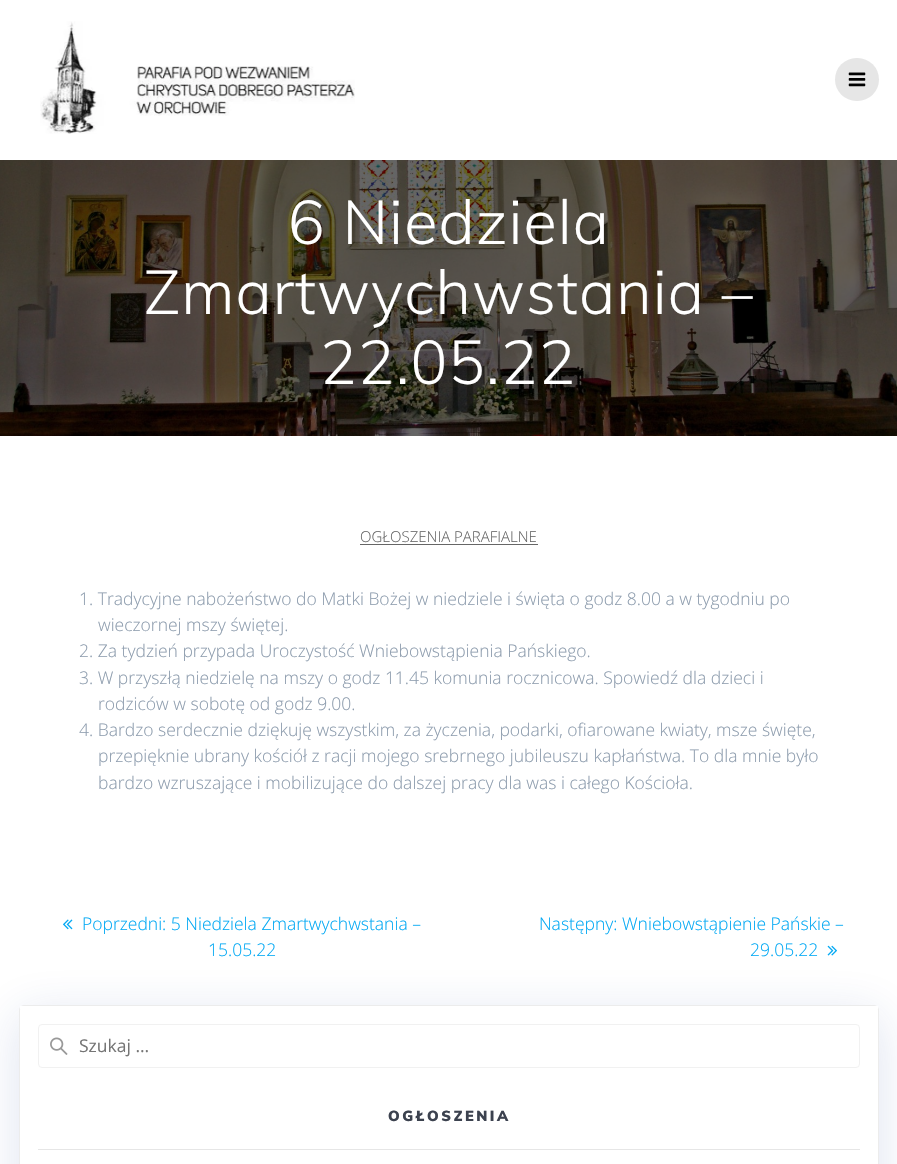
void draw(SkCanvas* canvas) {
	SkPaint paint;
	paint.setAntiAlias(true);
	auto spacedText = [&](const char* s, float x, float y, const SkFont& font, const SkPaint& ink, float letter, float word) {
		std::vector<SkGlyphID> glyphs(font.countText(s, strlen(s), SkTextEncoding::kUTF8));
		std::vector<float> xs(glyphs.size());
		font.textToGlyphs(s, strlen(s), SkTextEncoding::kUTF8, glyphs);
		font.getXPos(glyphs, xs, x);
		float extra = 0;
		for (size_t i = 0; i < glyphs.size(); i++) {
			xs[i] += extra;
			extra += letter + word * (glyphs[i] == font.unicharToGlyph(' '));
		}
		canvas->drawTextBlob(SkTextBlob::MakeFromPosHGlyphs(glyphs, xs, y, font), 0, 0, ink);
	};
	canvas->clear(0xffffffff);
	canvas->drawImageRect(SkImages::DeferredFromEncodedData(SkData::MakeFromFileName("img1.png")), SkRect::MakeXYWH(40, 21, 315, 113), SkSamplingOptions());
	paint.setColor(0xffe6e6e6);
	canvas->drawRoundRect(SkRect::MakeXYWH(835, 58, 44, 43), 21.5, 21.5, paint);
	canvas->drawImageRect(SkImages::DeferredFromEncodedData(SkData::MakeFromFileName("img2.png")), SkRect::MakeXYWH(848, 72, 18, 15), SkSamplingOptions());
	canvas->drawImageRect(SkImages::DeferredFromEncodedData(SkData::MakeFromFileName("img3.png")), SkRect::MakeXYWH(0, 160, 897, 276), SkSamplingOptions());
	SkFont f1(fontMgr->matchFamilyStyle("Muli", SkFontStyle(300, SkFontStyle::kNormal_Width, SkFontStyle::kUpright_Slant)), 61.25);
	f1.setSubpixel(true);
	paint.setColor(0xffffffff);
	spacedText("6 Niedziela", 288, 244, f1, paint, 1.1, 0);
	spacedText("Zmartwychwstania –", 144, 314, f1, paint, 1.1, 0);
	spacedText("22.05.22", 320, 384, f1, paint, 1.1, 0);
	SkFont f2(fontMgr->matchFamilyStyle("Open Sans", SkFontStyle(300, SkFontStyle::kNormal_Width, SkFontStyle::kUpright_Slant)), 15);
	f2.setSubpixel(true);
	paint.setColor(0xff666666);
	canvas->drawString("OGŁOSZENIA PARAFIALNE", 360, 542, f2, paint);
	canvas->drawRect(SkRect::MakeXYWH(360, 544, 178, 1), paint);
	SkFont f3(fontMgr->matchFamilyStyle("Open Sans", SkFontStyle(300, SkFontStyle::kNormal_Width, SkFontStyle::kUpright_Slant)), 17.5);
	f3.setSubpixel(true);
	paint.setColor(0xff8e9dae);
	canvas->drawString("1. Tradycyjne nabożeństwo do Matki Bożej w niedziele i święta o godz 8.00 a w tygodniu po", 79, 605, f3, paint);
	canvas->drawString("wieczornej mszy świętej.", 98, 631, f3, paint);
	canvas->drawString("2. Za tydzień przypada Uroczystość Wniebowstąpienia Pańskiego.", 79, 657, f3, paint);
	canvas->drawString("3. W przyszłą niedzielę na mszy o godz 11.45 komunia rocznicowa. Spowiedź dla dzieci i", 79, 684, f3, paint);
	canvas->drawString("rodziców w sobotę od godz 9.00.", 98, 710, f3, paint);
	canvas->drawString("4. Bardzo serdecznie dziękuję wszystkim, za życzenia, podarki, ofiarowane kwiaty, msze święte,", 79, 736, f3, paint);
	canvas->drawString("przepięknie ubrany kościół z racji mojego srebrnego jubileuszu kapłaństwa. To dla mnie było", 98, 762, f3, paint);
	canvas->drawString("bardzo wzruszające i mobilizujące do dalszej pracy dla was i całego Kościoła.", 98, 789, f3, paint);
	canvas->drawImageRect(SkImages::DeferredFromEncodedData(SkData::MakeFromFileName("img4.png")), SkRect::MakeXYWH(63, 919, 10, 11), SkSamplingOptions());
	paint.setColor(0xff03a9f4);
	canvas->drawString("Poprzedni: 5 Niedziela Zmartwychwstania –", 82, 930, f3, paint);
	canvas->drawString("15.05.22", 208, 956, f3, paint);
	canvas->drawString("Następny: Wniebowstąpienie Pańskie –", 539, 930, f3, paint);
	canvas->drawString("29.05.22", 750, 956, f3, paint);
	canvas->drawImageRect(SkImages::DeferredFromEncodedData(SkData::MakeFromFileName("img5.png")), SkRect::MakeXYWH(827, 945, 10, 11), SkSamplingOptions());
	paint.setColor(0x26234598);
	paint.setMaskFilter(SkMaskFilter::MakeBlur(kNormal_SkBlurStyle, 24.5));
	canvas->drawRoundRect(SkRect::MakeXYWH(19, 1015, 860, 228), 5, 5, paint);
	paint.setMaskFilter(nullptr);
	paint.setColor(0xffffffff);
	canvas->drawRoundRect(SkRect::MakeXYWH(19.5, 1005.5, 859, 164), 4.5, 4.5, paint);
	paint.setStroke(true);
	paint.setStrokeWidth(1);
	paint.setColor(0xffececec);
	canvas->drawRoundRect(SkRect::MakeXYWH(19.5, 1005.5, 859, 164), 4.5, 4.5, paint);
	paint.setStroke(false);
	paint.setColor(0xffffffff);
	canvas->drawRect(SkRect::MakeXYWH(20, 1006, 858, 3), paint);
	canvas->drawImageRect(SkImages::DeferredFromEncodedData(SkData::MakeFromFileName("img6.png")), SkRect::MakeXYWH(50, 1037, 18, 18), SkSamplingOptions());
	paint.setStroke(true);
	paint.setColor(0xfff1f1f1);
	canvas->drawRoundRect(SkRect::MakeXYWH(38.5, 1024.5, 821, 43), 3.5, 3.5, paint);
	SkFont f4(fontMgr->matchFamilyStyle("Open Sans", SkFontStyle::Normal()), 17.5);
	f4.setSubpixel(true);
	paint.setStroke(false);
	paint.setColor(0xff757575);
	canvas->drawString("Szukaj …", 79, 1052, f4, paint);
	SkFont f5(fontMgr->matchFamilyStyle("Muli", SkFontStyle(900, SkFontStyle::kNormal_Width, SkFontStyle::kUpright_Slant)), 14.5);
	f5.setSubpixel(true);
	paint.setColor(0xff3c424f);
	spacedText("OGŁOSZENIA", 388, 1121, f5, paint, 2.5, 0);
	paint.setColor(0xffe6e6e6);
	canvas->drawRect(SkRect::MakeXYWH(38, 1149, 822, 1), paint);
}
